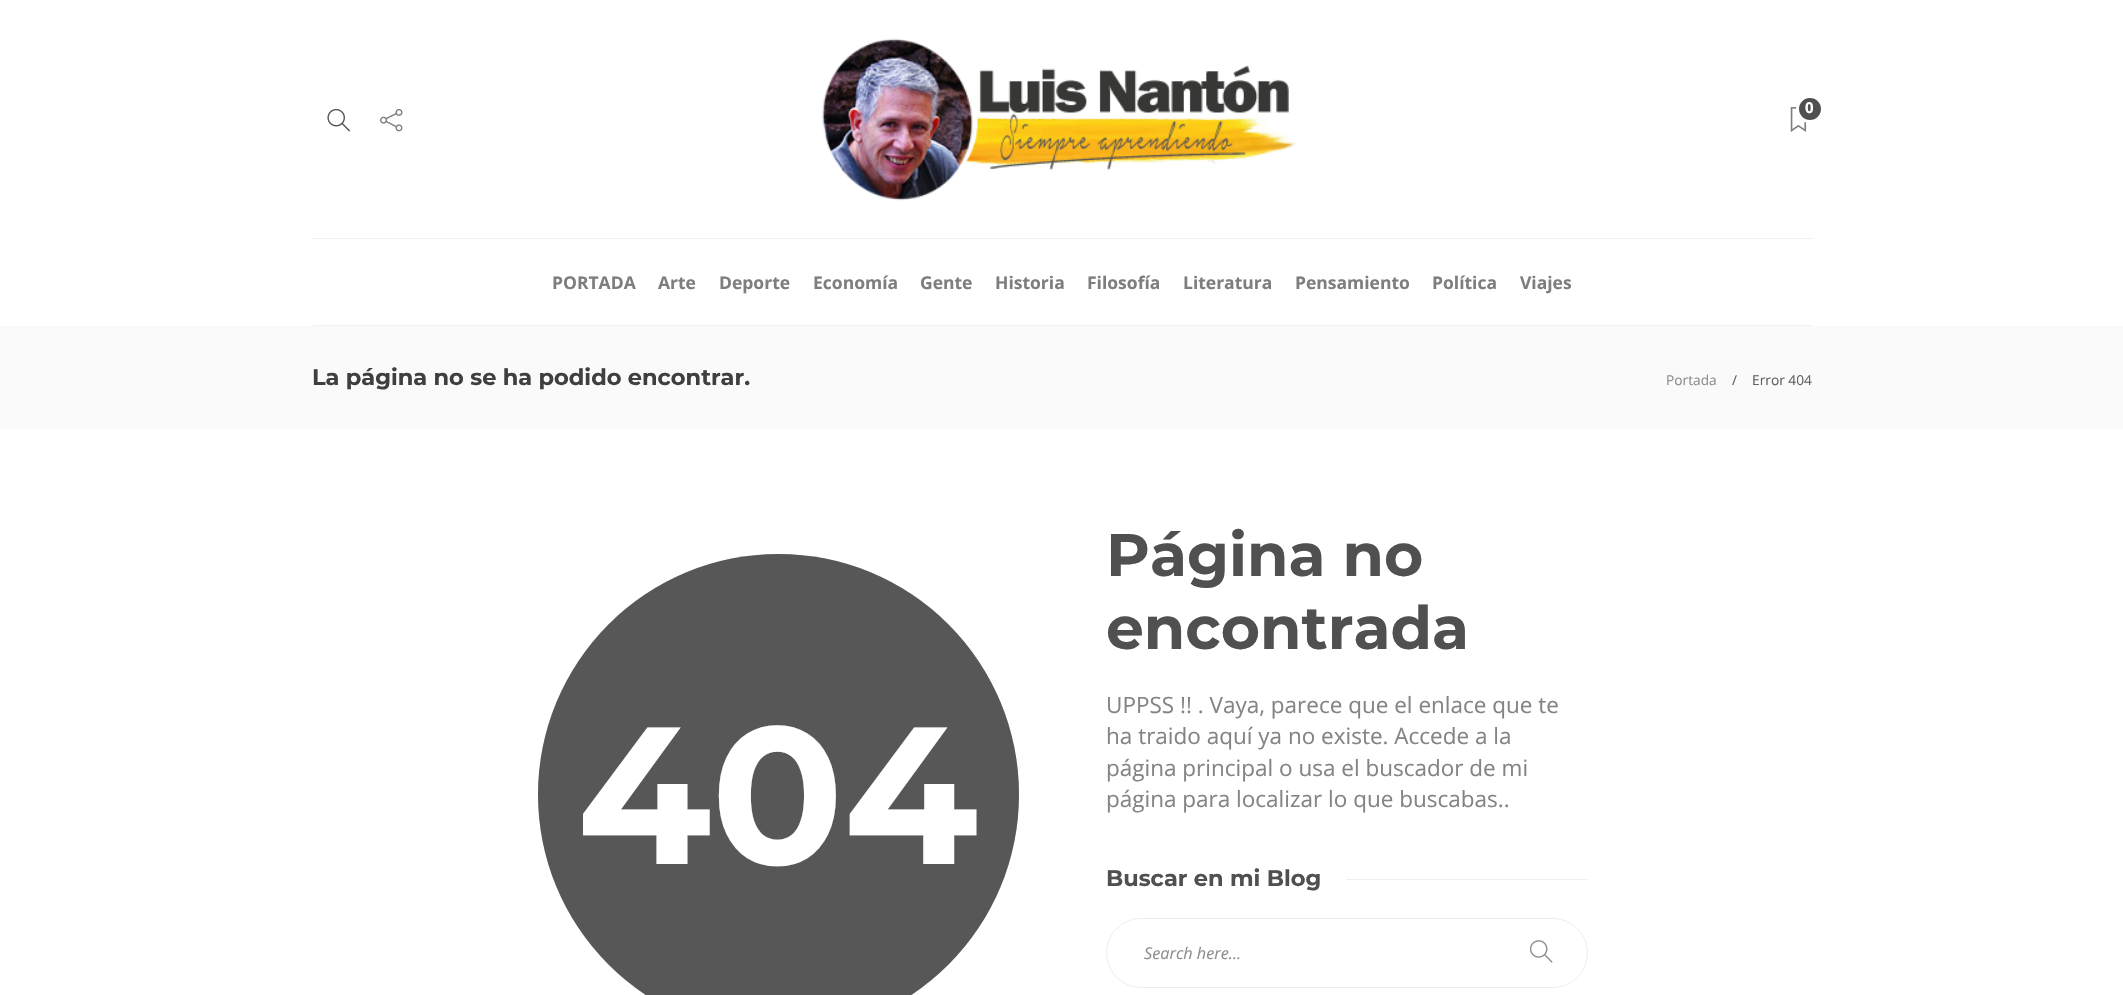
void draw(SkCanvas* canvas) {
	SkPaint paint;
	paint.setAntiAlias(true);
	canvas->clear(0xffffffff);
	canvas->drawImageRect(SkImages::DeferredFromEncodedData(SkData::MakeFromFileName("img1.png")), SkRect::MakeXYWH(327, 108, 23, 24), SkSamplingOptions());
	canvas->drawImageRect(SkImages::DeferredFromEncodedData(SkData::MakeFromFileName("img2.png")), SkRect::MakeXYWH(380, 109, 23, 23), SkSamplingOptions());
	canvas->drawImageRect(SkImages::DeferredFromEncodedData(SkData::MakeFromFileName("img3.png")), SkRect::MakeXYWH(822, 38, 475, 163), SkSamplingOptions());
	canvas->drawImageRect(SkImages::DeferredFromEncodedData(SkData::MakeFromFileName("img4.png")), SkRect::MakeXYWH(1790, 107, 17, 25), SkSamplingOptions());
	paint.setColor(0xff505050);
	canvas->drawCircle(1810, 109, 12.5, paint);
	paint.setStroke(true);
	paint.setStrokeWidth(3);
	paint.setColor(0xffffffff);
	canvas->drawCircle(1810, 109, 12.5, paint);
	SkFont f1(fontMgr->matchFamilyStyle("Open Sans", SkFontStyle::Bold()), 15);
	f1.setSubpixel(true);
	paint.setStroke(false);
	canvas->drawString("0", 1805, 113, f1, paint);
	paint.setColor(0xfff1f1f1);
	canvas->drawRect(SkRect::MakeXYWH(313, 238, 1500, 1), paint);
	canvas->drawRect(SkRect::MakeXYWH(313, 325, 1500, 1), paint);
	SkFont f2(fontMgr->matchFamilyStyle("Open Sans", SkFontStyle::Bold()), 17.5);
	f2.setSubpixel(true);
	paint.setColor(0xff7e7e7e);
	canvas->drawString("PORTADA", 552, 289, f2, paint);
	canvas->drawString("Arte", 658, 289, f2, paint);
	canvas->drawString("Deporte", 719, 289, f2, paint);
	canvas->drawString("Economía", 813, 289, f2, paint);
	canvas->drawString("Gente", 920, 289, f2, paint);
	canvas->drawString("Historia", 995, 289, f2, paint);
	canvas->drawString("Filosofía", 1087, 289, f2, paint);
	canvas->drawString("Literatura", 1183, 289, f2, paint);
	canvas->drawString("Pensamiento", 1295, 289, f2, paint);
	canvas->drawString("Política", 1432, 289, f2, paint);
	canvas->drawString("Viajes", 1520, 289, f2, paint);
	paint.setColor(0xfffafafa);
	canvas->drawRect(SkRect::MakeXYWH(0, 326, 2123, 103), paint);
	SkFont f3(fontMgr->matchFamilyStyle("Montserrat", SkFontStyle::Bold()), 22.5);
	f3.setSubpixel(true);
	paint.setColor(0xff3f3f3f);
	canvas->drawString("La página no se ha podido encontrar.", 312, 385, f3, paint);
	SkFont f4(fontMgr->matchFamilyStyle("Open Sans", SkFontStyle::Normal()), 13.75);
	f4.setSubpixel(true);
	paint.setColor(0xff8d8d8d);
	canvas->drawString("Portada", 1666, 385, f4, paint);
	paint.setColor(0xff616161);
	canvas->drawString("/", 1732, 385, f4, paint);
	canvas->drawString("Error 404", 1752, 385, f4, paint);
	paint.setColor(0xffcccccc);
	canvas->drawCircle(778.5, 794.5, 240.5, paint);
	paint.setColor(0xcc3a3a3a);
	canvas->drawCircle(778.5, 794.5, 240.5, paint);
	SkFont f5(fontMgr->matchFamilyStyle("Montserrat", SkFontStyle::Bold()), 195);
	f5.setSubpixel(true);
	paint.setColor(0xffffffff);
	canvas->drawString("404", 577, 864, f5, paint);
	SkFont f6(fontMgr->matchFamilyStyle("Montserrat", SkFontStyle::Bold()), 60);
	f6.setSubpixel(true);
	paint.setColor(0xff505050);
	canvas->drawString("Página no", 1106, 576, f6, paint);
	canvas->drawString("encontrada", 1106, 649, f6, paint);
	SkFont f7(fontMgr->matchFamilyStyle("Open Sans", SkFontStyle::Normal()), 22.5);
	f7.setSubpixel(true);
	paint.setColor(0xff848484);
	canvas->drawString("UPPSS !! . Vaya, parece que el enlace que te", 1106, 713, f7, paint);
	canvas->drawString("ha traido aquí ya no existe. Accede a la", 1106, 744, f7, paint);
	canvas->drawString("página principal o usa el buscador de mi", 1106, 776, f7, paint);
	canvas->drawString("página para localizar lo que buscabas..", 1106, 807, f7, paint);
	paint.setColor(0xff505050);
	canvas->drawString("Buscar en mi Blog", 1106, 886, f3, paint);
	paint.setColor(0xfff0f0f0);
	canvas->drawRect(SkRect::MakeXYWH(1346, 879, 242, 1), paint);
	paint.setStroke(true);
	paint.setStrokeWidth(1);
	paint.setColor(0xffededed);
	canvas->drawRoundRect(SkRect::MakeXYWH(1106.5, 918.5, 481, 69), 34.5, 34.5, paint);
	SkFont f8(fontMgr->matchFamilyStyle("Open Sans", SkFontStyle::Italic()), 16.25);
	f8.setSubpixel(true);
	paint.setStroke(false);
	paint.setColor(0xff8d8d8d);
	canvas->drawString("Search here...", 1144, 959, f8, paint);
	canvas->drawImageRect(SkImages::DeferredFromEncodedData(SkData::MakeFromFileName("img5.png")), SkRect::MakeXYWH(1530, 940, 23, 23), SkSamplingOptions());
}
